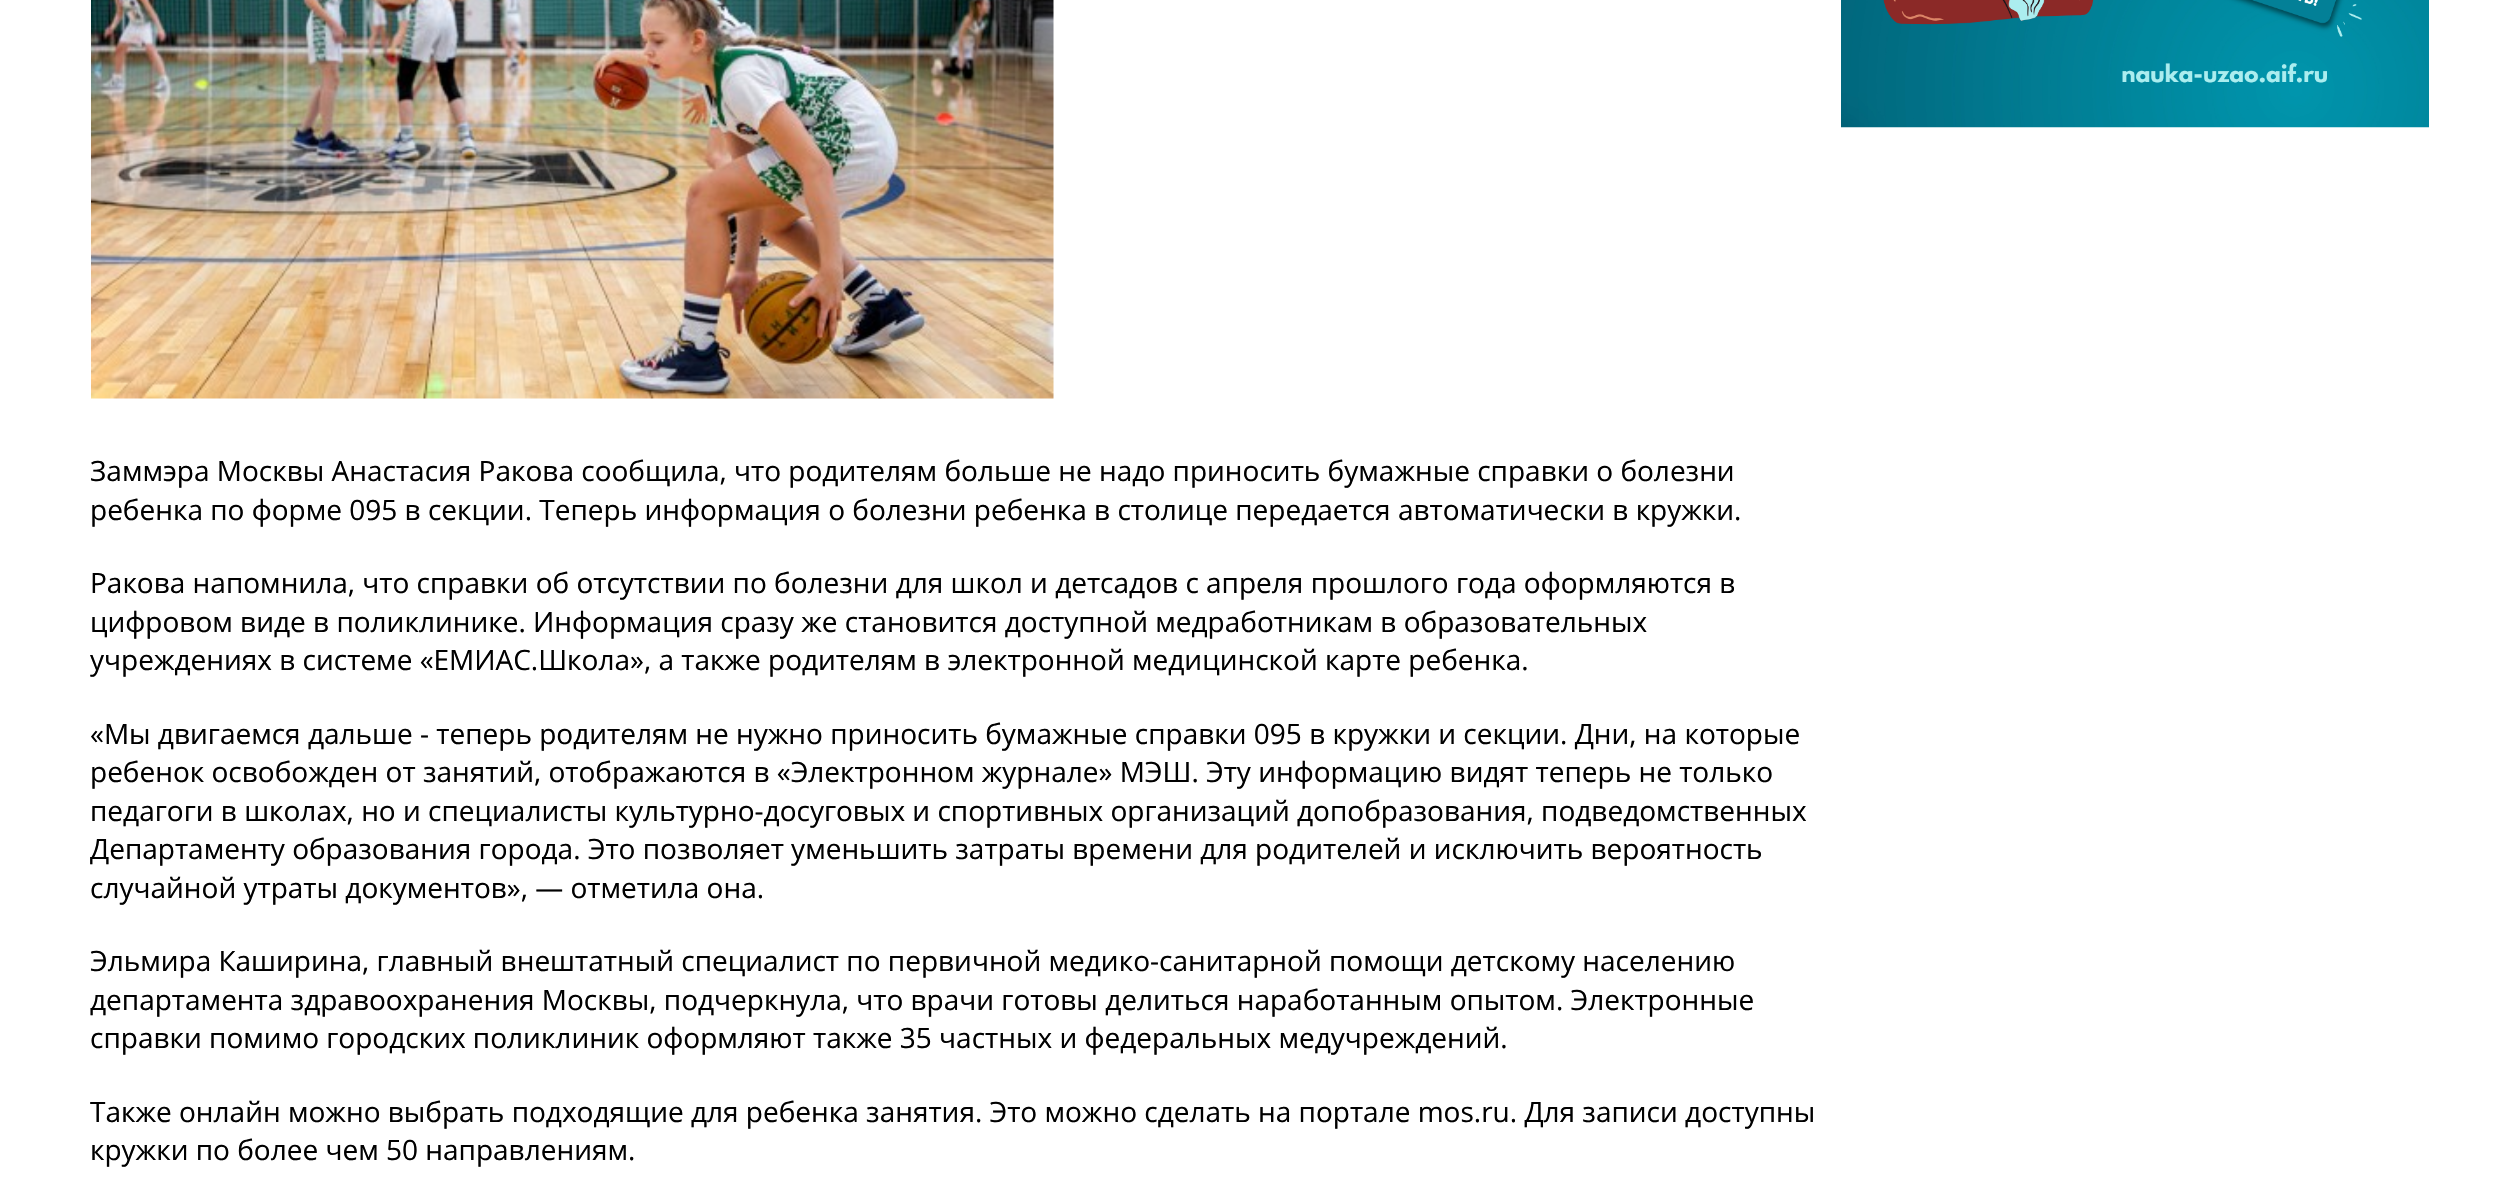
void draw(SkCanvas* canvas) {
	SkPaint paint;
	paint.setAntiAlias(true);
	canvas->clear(0xffffffff);
	canvas->drawImageRect(SkImages::DeferredFromEncodedData(SkData::MakeFromFileName("img1.png")), SkRect::MakeXYWH(1841, 0, 588, 128), SkSamplingOptions());
	canvas->drawImageRect(SkImages::DeferredFromEncodedData(SkData::MakeFromFileName("img2.png")), SkRect::MakeXYWH(91, 0, 963, 399), SkSamplingOptions());
	SkFont f1(fontMgr->matchFamilyStyle("Open Sans", SkFontStyle::Normal()), 28);
	f1.setSubpixel(true);
	paint.setColor(0xff000000);
	canvas->drawString("Заммэра Москвы Анастасия Ракова сообщила, что родителям больше не надо приносить бумажные справки о болезни", 90, 481, f1, paint);
	canvas->drawString("ребенка по форме 095 в секции. Теперь информация о болезни ребенка в столице передается автоматически в кружки.", 90, 520, f1, paint);
	canvas->drawString("Ракова напомнила, что справки об отсутствии по болезни для школ и детсадов с апреля прошлого года оформляются в", 90, 593, f1, paint);
	canvas->drawString("цифровом виде в поликлинике. Информация сразу же становится доступной медработникам в образовательных", 90, 632, f1, paint);
	canvas->drawString("учреждениях в системе «ЕМИАС.Школа», а также родителям в электронной медицинской карте ребенка.", 90, 670, f1, paint);
	canvas->drawString("«Мы двигаемся дальше - теперь родителям не нужно приносить бумажные справки 095 в кружки и секции. Дни, на которые", 90, 744, f1, paint);
	canvas->drawString("ребенок освобожден от занятий, отображаются в «Электронном журнале» МЭШ. Эту информацию видят теперь не только", 90, 782, f1, paint);
	canvas->drawString("педагоги в школах, но и специалисты культурно-досуговых и спортивных организаций допобразования, подведомственных", 90, 821, f1, paint);
	canvas->drawString("Департаменту образования города. Это позволяет уменьшить затраты времени для родителей и исключить вероятность", 90, 859, f1, paint);
	canvas->drawString("случайной утраты документов», — отметила она.", 90, 898, f1, paint);
	canvas->drawString("Эльмира Каширина, главный внештатный специалист по первичной медико-санитарной помощи детскому населению", 90, 971, f1, paint);
	canvas->drawString("департамента здравоохранения Москвы, подчеркнула, что врачи готовы делиться наработанным опытом. Электронные", 90, 1010, f1, paint);
	canvas->drawString("справки помимо городских поликлиник оформляют также 35 частных и федеральных медучреждений.", 90, 1048, f1, paint);
	canvas->drawString("Также онлайн можно выбрать подходящие для ребенка занятия. Это можно сделать на портале mos.ru. Для записи доступны", 90, 1122, f1, paint);
	canvas->drawString("кружки по более чем 50 направлениям.", 90, 1160, f1, paint);
}
